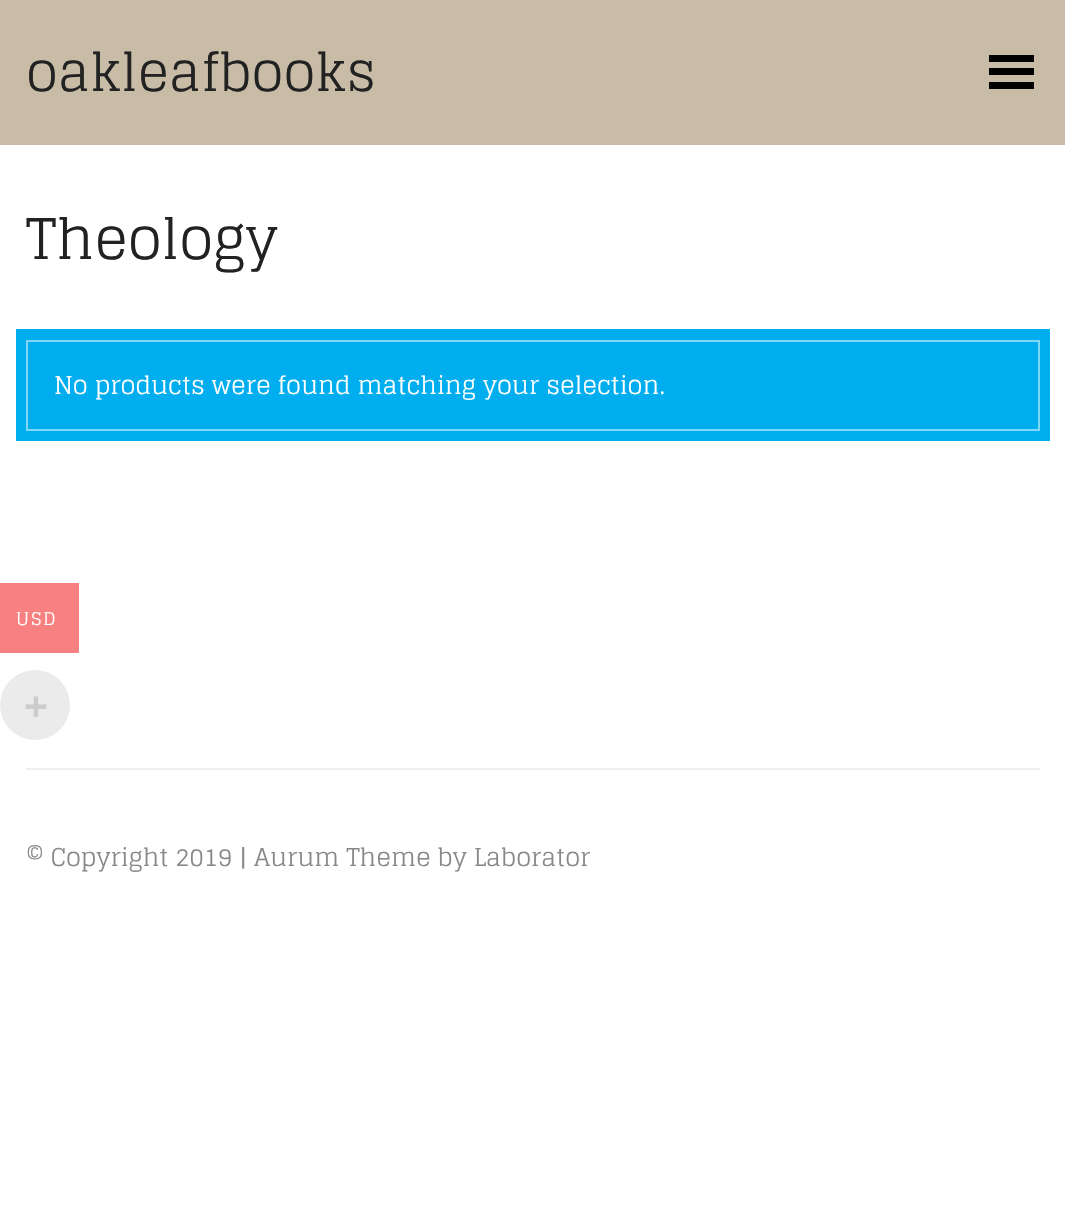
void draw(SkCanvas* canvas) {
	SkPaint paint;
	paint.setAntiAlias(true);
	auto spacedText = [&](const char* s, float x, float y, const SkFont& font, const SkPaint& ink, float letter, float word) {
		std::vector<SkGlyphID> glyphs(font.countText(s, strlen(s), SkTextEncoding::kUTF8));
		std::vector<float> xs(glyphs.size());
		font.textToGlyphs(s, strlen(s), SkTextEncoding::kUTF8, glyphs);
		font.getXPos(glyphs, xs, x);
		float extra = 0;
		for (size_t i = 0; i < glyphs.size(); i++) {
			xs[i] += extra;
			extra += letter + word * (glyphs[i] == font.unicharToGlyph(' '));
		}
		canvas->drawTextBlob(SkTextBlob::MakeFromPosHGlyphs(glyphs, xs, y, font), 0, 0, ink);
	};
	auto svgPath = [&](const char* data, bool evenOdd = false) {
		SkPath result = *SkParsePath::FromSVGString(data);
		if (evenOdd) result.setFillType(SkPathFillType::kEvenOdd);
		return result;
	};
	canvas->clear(0xffffffff);
	paint.setColor(0xffc8bca7);
	canvas->drawRect(SkRect::MakeXYWH(0, 0, 1065, 145), paint);
	SkFont f1(fontMgr->matchFamilyStyle("Glegoo", SkFontStyle::Normal()), 52.5);
	f1.setSubpixel(true);
	paint.setColor(0xff222222);
	canvas->drawString("oakleafbooks", 26, 91, f1, paint);
	paint.setColor(0xff000000);
	canvas->drawPath(svgPath("M1034 62H989V55H1034ZM1034 68H989V75H1034ZM1034 82H989V89H1034Z"), paint);
	SkFont f2(fontMgr->matchFamilyStyle("Glegoo", SkFontStyle::Normal()), 56);
	f2.setSubpixel(true);
	paint.setColor(0xff222222);
	canvas->drawString("Theology", 26, 259, f2, paint);
	paint.setStroke(true);
	paint.setStrokeWidth(11);
	paint.setColor(0xff00aeef);
	canvas->drawRect(SkRect::MakeXYWH(21.5, 334.5, 1023, 101), paint);
	paint.setStroke(false);
	canvas->drawRect(SkRect::MakeXYWH(27, 341, 1012, 89), paint);
	paint.setStroke(true);
	paint.setStrokeWidth(2);
	paint.setColor(0xff80d7f7);
	canvas->drawRect(SkRect::MakeXYWH(27, 341, 1012, 89), paint);
	SkFont f3(fontMgr->matchFamilyStyle("Glegoo", SkFontStyle::Normal()), 24.5);
	f3.setSubpixel(true);
	paint.setStroke(false);
	paint.setColor(0xffffffff);
	canvas->drawString("No products were found matching your selection.", 54, 394, f3, paint);
	paint.setColor(0xfff78080);
	canvas->drawRect(SkRect::MakeXYWH(0, 583, 79, 70), paint);
	SkFont f4(fontMgr->matchFamilyStyle("Glegoo", SkFontStyle::Normal()), 17.5);
	f4.setSubpixel(true);
	paint.setColor(0xffffffff);
	spacedText("USD", 16, 625, f4, paint, 2, 0);
	paint.setColor(0xffebebeb);
	canvas->drawCircle(35, 705, 35, paint);
	SkFont f5(fontMgr->matchFamilyStyle("Glegoo", SkFontStyle::Bold()), 49);
	f5.setSubpixel(true);
	paint.setColor(0xffcccccc);
	canvas->drawString("+", 21, 723, f5, paint);
	paint.setColor(0xffeeeeee);
	canvas->drawRect(SkRect::MakeXYWH(26, 768, 1014, 2), paint);
	paint.setColor(0xff888888);
	canvas->drawString("© Copyright 2019 | Aurum Theme by Laborator", 26, 866, f3, paint);
}
